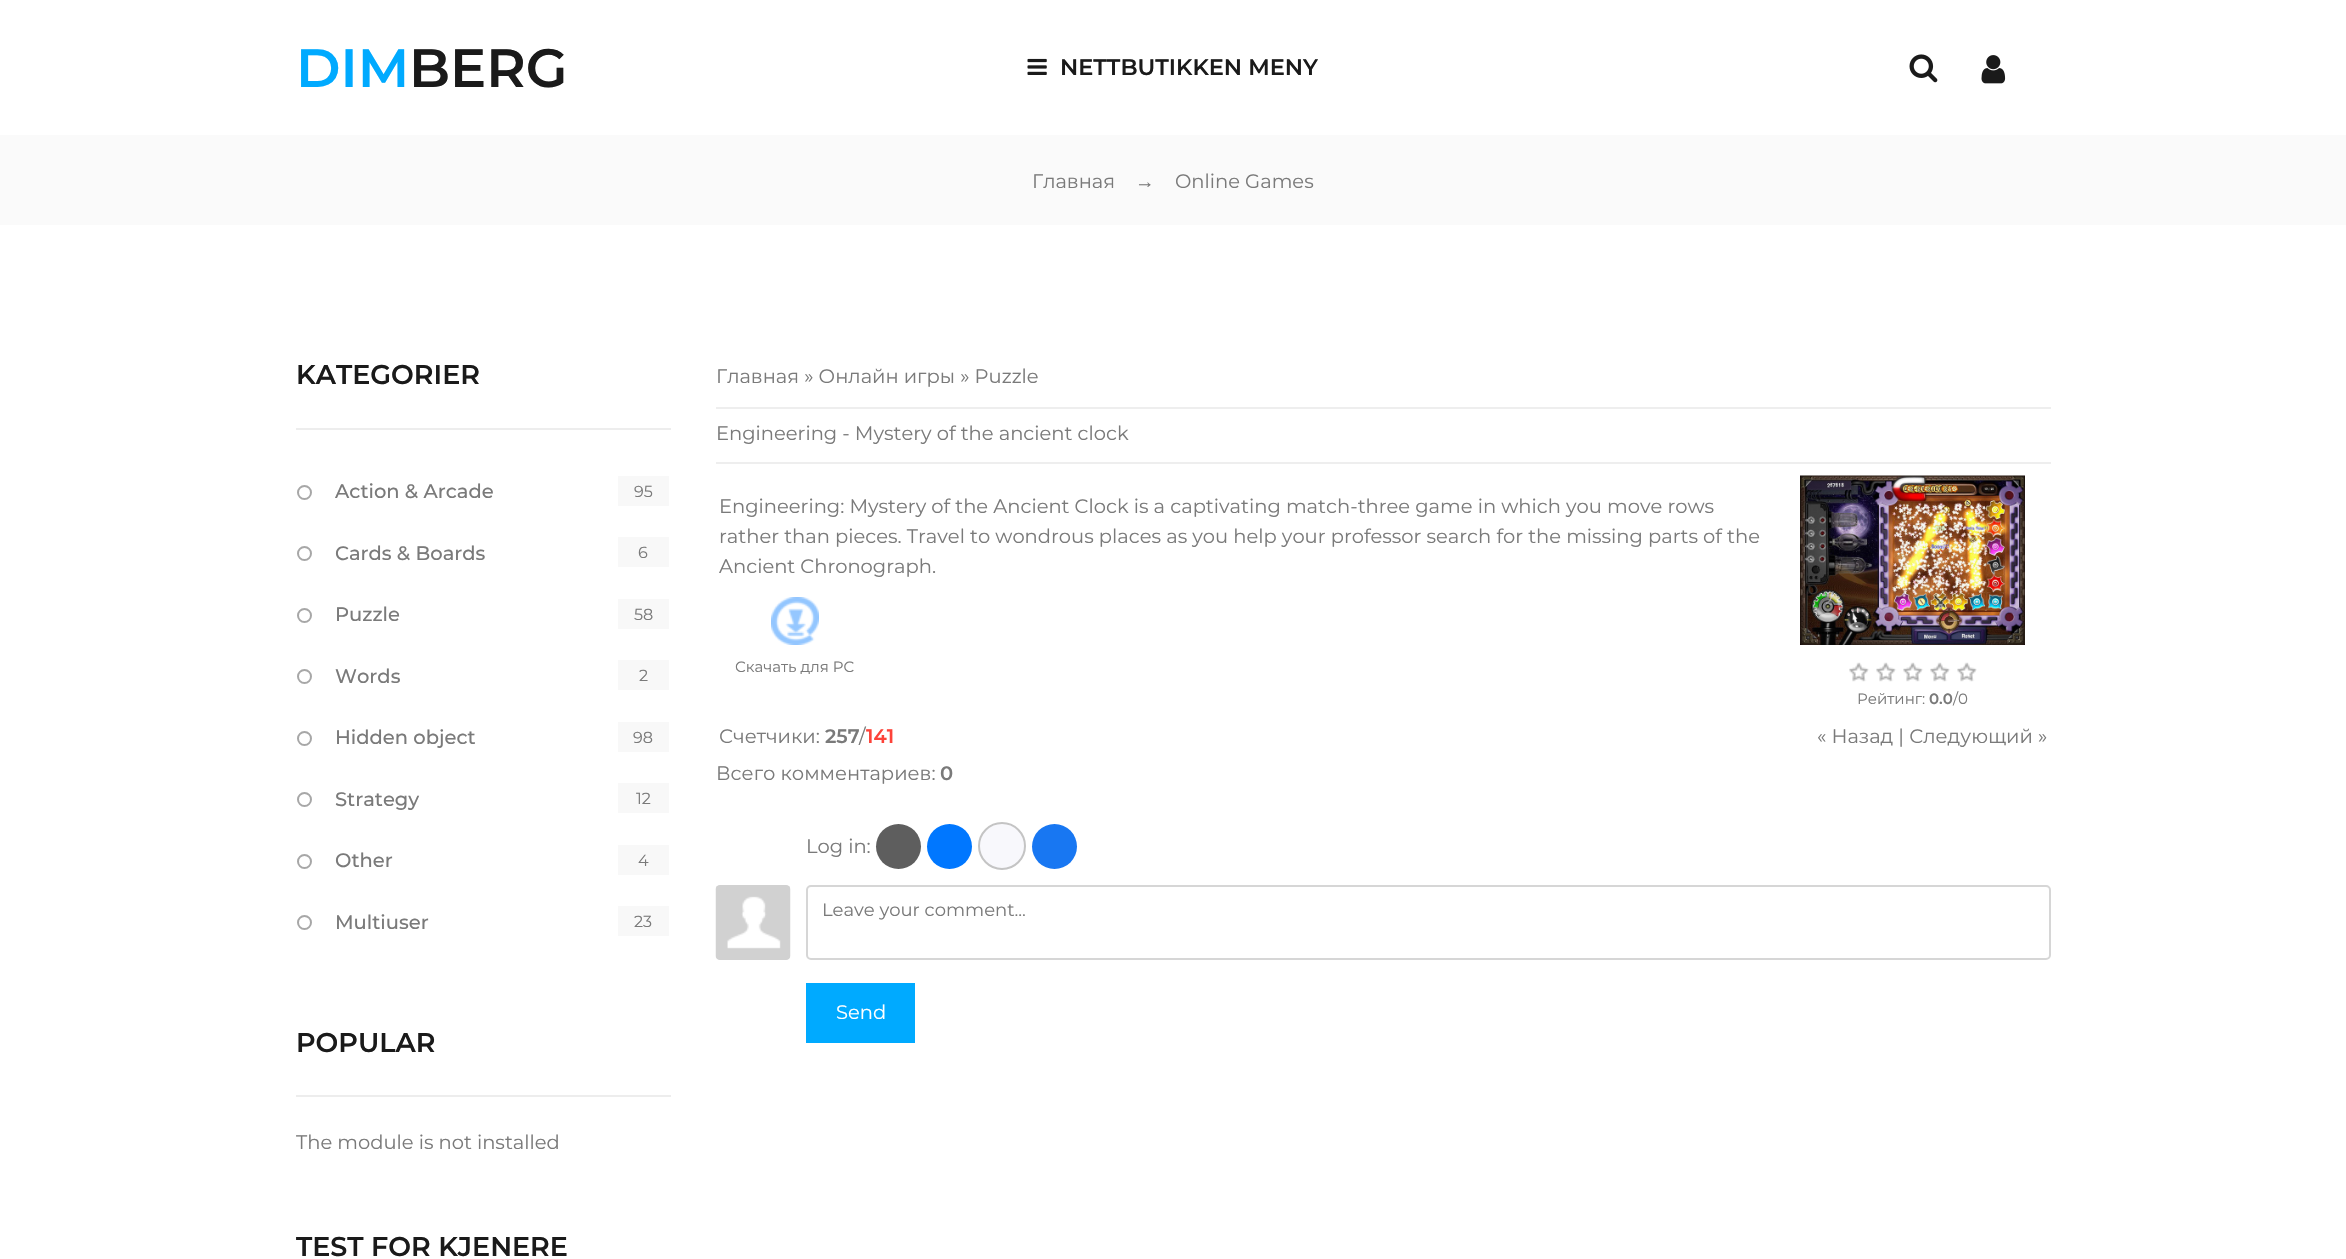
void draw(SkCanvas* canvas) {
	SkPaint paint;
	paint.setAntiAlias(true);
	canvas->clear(0xffffffff);
	SkFont f1(fontMgr->matchFamilyStyle("Montserrat", SkFontStyle(600, SkFontStyle::kNormal_Width, SkFontStyle::kUpright_Slant)), 54);
	f1.setSubpixel(true);
	paint.setColor(0xff00aaff);
	canvas->drawString("DIM", 296, 87, f1, paint);
	paint.setColor(0xff1a1a1a);
	canvas->drawString("BERG", 409, 87, f1, paint);
	canvas->drawImageRect(SkImages::DeferredFromEncodedData(SkData::MakeFromFileName("img1.png")), SkRect::MakeXYWH(1027, 58, 20, 17), SkSamplingOptions());
	SkFont f2(fontMgr->matchFamilyStyle("Montserrat", SkFontStyle(600, SkFontStyle::kNormal_Width, SkFontStyle::kUpright_Slant)), 22.5);
	f2.setSubpixel(true);
	canvas->drawString("NETTBUTIKKEN MENY", 1060, 75, f2, paint);
	canvas->drawImageRect(SkImages::DeferredFromEncodedData(SkData::MakeFromFileName("img2.png")), SkRect::MakeXYWH(1909, 54, 29, 29), SkSamplingOptions());
	canvas->drawImageRect(SkImages::DeferredFromEncodedData(SkData::MakeFromFileName("img3.png")), SkRect::MakeXYWH(1981, 55, 25, 29), SkSamplingOptions());
	paint.setColor(0xfffafafa);
	canvas->drawRect(SkRect::MakeXYWH(0, 135, 2346, 90), paint);
	SkFont f3(fontMgr->matchFamilyStyle("Montserrat", SkFontStyle::Normal()), 19.5);
	f3.setSubpixel(true);
	paint.setColor(0xff7a7a7a);
	canvas->drawString("Главная", 1032, 188, f3, paint);
	SkFont f4(fontMgr->matchFamilyStyle("Liberation Serif", SkFontStyle::Normal()), 19.5);
	f4.setSubpixel(true);
	canvas->drawString("→", 1135, 188, f4, paint);
	canvas->drawString("Online Games", 1175, 188, f3, paint);
	paint.setColor(0xffededed);
	canvas->drawRect(SkRect::MakeXYWH(296, 428, 375, 2), paint);
	SkFont f5(fontMgr->matchFamilyStyle("Montserrat", SkFontStyle(600, SkFontStyle::kNormal_Width, SkFontStyle::kUpright_Slant)), 27);
	f5.setSubpixel(true);
	paint.setColor(0xff1a1a1a);
	canvas->drawString("KATEGORIER", 296, 384, f5, paint);
	paint.setStroke(true);
	paint.setStrokeWidth(2);
	paint.setColor(0xffa7a7a7);
	canvas->drawCircle(304.5, 492.5, 6.5, paint);
	SkFont f6(fontMgr->matchFamilyStyle("Montserrat", SkFontStyle(500, SkFontStyle::kNormal_Width, SkFontStyle::kUpright_Slant)), 19.5);
	f6.setSubpixel(true);
	paint.setStroke(false);
	paint.setColor(0xff7a7a7a);
	canvas->drawString("Action & Arcade", 335, 498, f6, paint);
	paint.setColor(0xfff8f8f8);
	canvas->drawRect(SkRect::MakeXYWH(618, 476, 51, 30), paint);
	SkFont f7(fontMgr->matchFamilyStyle("Montserrat", SkFontStyle::Normal()), 16);
	f7.setSubpixel(true);
	paint.setColor(0xff7a7a7a);
	canvas->drawString("95", 634, 497, f7, paint);
	paint.setStroke(true);
	paint.setColor(0xffa7a7a7);
	canvas->drawCircle(304.5, 553.5, 6.5, paint);
	paint.setStroke(false);
	paint.setColor(0xff7a7a7a);
	canvas->drawString("Cards & Boards", 335, 560, f6, paint);
	paint.setColor(0xfff8f8f8);
	canvas->drawRect(SkRect::MakeXYWH(618, 537, 51, 30), paint);
	paint.setColor(0xff7a7a7a);
	canvas->drawString("6", 638, 558, f7, paint);
	paint.setStroke(true);
	paint.setColor(0xffa7a7a7);
	canvas->drawCircle(304.5, 615.5, 6.5, paint);
	paint.setStroke(false);
	paint.setColor(0xff7a7a7a);
	canvas->drawString("Puzzle", 335, 621, f6, paint);
	paint.setColor(0xfff8f8f8);
	canvas->drawRect(SkRect::MakeXYWH(618, 599, 51, 30), paint);
	paint.setColor(0xff7a7a7a);
	canvas->drawString("58", 634, 620, f7, paint);
	paint.setStroke(true);
	paint.setColor(0xffa7a7a7);
	canvas->drawCircle(304.5, 676.5, 6.5, paint);
	paint.setStroke(false);
	paint.setColor(0xff7a7a7a);
	canvas->drawString("Words", 335, 683, f6, paint);
	paint.setColor(0xfff8f8f8);
	canvas->drawRect(SkRect::MakeXYWH(618, 660, 51, 30), paint);
	paint.setColor(0xff7a7a7a);
	canvas->drawString("2", 639, 681, f7, paint);
	paint.setStroke(true);
	paint.setColor(0xffa7a7a7);
	canvas->drawCircle(304.5, 738.5, 6.5, paint);
	paint.setStroke(false);
	paint.setColor(0xff7a7a7a);
	canvas->drawString("Hidden object", 335, 744, f6, paint);
	paint.setColor(0xfff8f8f8);
	canvas->drawRect(SkRect::MakeXYWH(618, 722, 51, 30), paint);
	paint.setColor(0xff7a7a7a);
	canvas->drawString("98", 633, 743, f7, paint);
	paint.setStroke(true);
	paint.setColor(0xffa7a7a7);
	canvas->drawCircle(304.5, 799.5, 6.5, paint);
	paint.setStroke(false);
	paint.setColor(0xff7a7a7a);
	canvas->drawString("Strategy", 335, 806, f6, paint);
	paint.setColor(0xfff8f8f8);
	canvas->drawRect(SkRect::MakeXYWH(618, 783, 51, 30), paint);
	paint.setColor(0xff7a7a7a);
	canvas->drawString("12", 636, 804, f7, paint);
	paint.setStroke(true);
	paint.setColor(0xffa7a7a7);
	canvas->drawCircle(304.5, 861.5, 6.5, paint);
	paint.setStroke(false);
	paint.setColor(0xff7a7a7a);
	canvas->drawString("Other", 335, 867, f6, paint);
	paint.setColor(0xfff8f8f8);
	canvas->drawRect(SkRect::MakeXYWH(618, 845, 51, 30), paint);
	paint.setColor(0xff7a7a7a);
	canvas->drawString("4", 638, 866, f7, paint);
	paint.setStroke(true);
	paint.setColor(0xffa7a7a7);
	canvas->drawCircle(304.5, 922.5, 6.5, paint);
	paint.setStroke(false);
	paint.setColor(0xff7a7a7a);
	canvas->drawString("Multiuser", 335, 929, f6, paint);
	paint.setColor(0xfff8f8f8);
	canvas->drawRect(SkRect::MakeXYWH(618, 906, 51, 30), paint);
	paint.setColor(0xff7a7a7a);
	canvas->drawString("23", 634, 927, f7, paint);
	paint.setColor(0xffededed);
	canvas->drawRect(SkRect::MakeXYWH(296, 1095, 375, 2), paint);
	paint.setColor(0xff1a1a1a);
	canvas->drawString("POPULAR", 296, 1052, f5, paint);
	paint.setColor(0xff7a7a7a);
	canvas->drawString("The module is not installed", 296, 1149, f3, paint);
	paint.setColor(0xff1a1a1a);
	canvas->drawString("TEST FOR KJENERE", 296, 1256, f5, paint);
	paint.setColor(0xff7a7a7a);
	canvas->drawString("Главная » Онлайн игры » Puzzle", 716, 383, f3, paint);
	paint.setColor(0xffeeeeee);
	canvas->drawRect(SkRect::MakeXYWH(716, 407, 1335, 2), paint);
	paint.setColor(0xff7a7a7a);
	canvas->drawString("Engineering - Mystery of the ancient clock", 716, 440, f3, paint);
	paint.setColor(0xffeeeeee);
	canvas->drawRect(SkRect::MakeXYWH(716, 462, 1335, 2), paint);
	paint.setColor(0xff7a7a7a);
	canvas->drawString("Engineering: Mystery of the Ancient Clock is a captivating match-three game in which you move rows", 719, 513, f3, paint);
	canvas->drawString("rather than pieces. Travel to wondrous places as you help your professor search for the missing parts of the", 719, 543, f3, paint);
	canvas->drawString("Ancient Chronograph.", 719, 573, f3, paint);
	canvas->drawImageRect(SkImages::DeferredFromEncodedData(SkData::MakeFromFileName("img4.png")), SkRect::MakeXYWH(771, 597, 48, 48), SkSamplingOptions());
	SkFont f8(fontMgr->matchFamilyStyle("Montserrat", SkFontStyle::Normal()), 15);
	f8.setSubpixel(true);
	canvas->drawString("Скачать для PC", 735, 672, f8, paint);
	canvas->drawImageRect(SkImages::DeferredFromEncodedData(SkData::MakeFromFileName("img5.png")), SkRect::MakeXYWH(1800, 475, 225, 170), SkSamplingOptions());
	canvas->drawImageRect(SkImages::DeferredFromEncodedData(SkData::MakeFromFileName("img6.png")), SkRect::MakeXYWH(1849, 662, 128, 20), SkSamplingOptions());
	canvas->drawString("Рейтинг:", 1857, 704, f8, paint);
	SkFont f9(fontMgr->matchFamilyStyle("Montserrat", SkFontStyle(600, SkFontStyle::kNormal_Width, SkFontStyle::kUpright_Slant)), 15);
	f9.setSubpixel(true);
	canvas->drawString("0.0", 1929, 704, f9, paint);
	canvas->drawString("/0", 1953, 704, f8, paint);
	canvas->drawString("Счетчики:", 719, 743, f3, paint);
	SkFont f10(fontMgr->matchFamilyStyle("Montserrat", SkFontStyle(600, SkFontStyle::kNormal_Width, SkFontStyle::kUpright_Slant)), 19.5);
	f10.setSubpixel(true);
	canvas->drawString("257", 825, 743, f10, paint);
	canvas->drawString("/", 859, 743, f3, paint);
	paint.setColor(0xfffd4339);
	canvas->drawString("141", 866, 743, f10, paint);
	paint.setColor(0xff7a7a7a);
	canvas->drawString("« Назад | Следующий »", 1817, 743, f3, paint);
	canvas->drawString("Всего комментариев:", 716, 780, f3, paint);
	canvas->drawString("0", 940, 780, f10, paint);
	canvas->drawString("Log in:", 806, 853, f3, paint);
	paint.setColor(0xff5e5e5e);
	canvas->drawCircle(898.5, 846.5, 22.5, paint);
	paint.setColor(0xff0077ff);
	canvas->drawCircle(949.5, 846.5, 22.5, paint);
	paint.setColor(0xfff8f8fc);
	canvas->drawCircle(1002, 846, 23, paint);
	paint.setStroke(true);
	paint.setColor(0xffc4c4c4);
	canvas->drawCircle(1002, 846, 23, paint);
	paint.setStroke(false);
	paint.setColor(0xff1877f2);
	canvas->drawCircle(1054.5, 846.5, 22.5, paint);
	canvas->drawImageRect(SkImages::DeferredFromEncodedData(SkData::MakeFromFileName("img7.png")), SkRect::MakeXYWH(715, 885, 76, 75), SkSamplingOptions());
	paint.setStroke(true);
	paint.setColor(0xffd6d6d6);
	canvas->drawRoundRect(SkRect::MakeXYWH(807, 886, 1243, 73), 4, 4, paint);
	SkFont f11(fontMgr->matchFamilyStyle("Montserrat", SkFontStyle::Normal()), 18);
	f11.setSubpixel(true);
	paint.setStroke(false);
	paint.setColor(0xff7a7a7a);
	canvas->drawString("Leave your comment...", 822, 916, f11, paint);
	paint.setColor(0xff00aaff);
	canvas->drawRect(SkRect::MakeXYWH(806, 983, 109, 60), paint);
	paint.setColor(0xffffffff);
	canvas->drawString("Send", 836, 1019, f3, paint);
}
